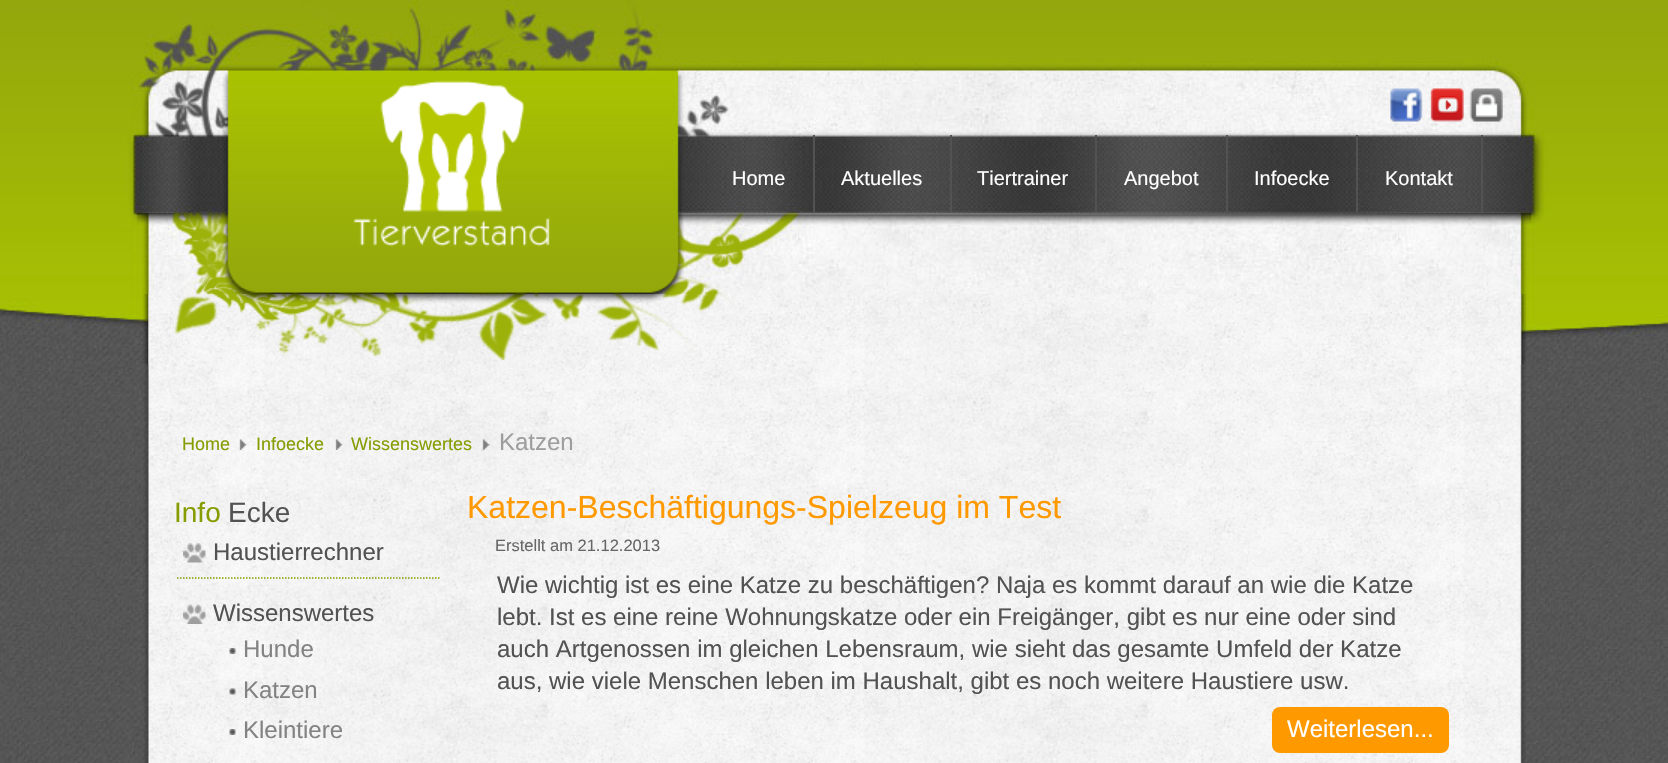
void draw(SkCanvas* canvas) {
	SkPaint paint;
	paint.setAntiAlias(true);
	auto svgPath = [&](const char* data, bool evenOdd = false) {
		SkPath result = *SkParsePath::FromSVGString(data);
		if (evenOdd) result.setFillType(SkPathFillType::kEvenOdd);
		return result;
	};
	canvas->clear(0xffffffff);
	canvas->drawImageRect(SkImages::DeferredFromEncodedData(SkData::MakeFromFileName("img1.png")), SkRect::MakeXYWH(0, 364, 1668, 399), SkSamplingOptions());
	canvas->drawImageRect(SkImages::DeferredFromEncodedData(SkData::MakeFromFileName("img2.png")), SkRect::MakeXYWH(0, 0, 1668, 365), SkSamplingOptions());
	canvas->drawImageRect(SkImages::DeferredFromEncodedData(SkData::MakeFromFileName("img7.png")), SkRect::MakeXYWH(143, 294, 1383, 469), SkSamplingOptions());
	canvas->drawImageRect(SkImages::DeferredFromEncodedData(SkData::MakeFromFileName("img8.png")), SkRect::MakeXYWH(136, 213, 1396, 147), SkSamplingOptions());
	canvas->drawImageRect(SkImages::DeferredFromEncodedData(SkData::MakeFromFileName("img3.png")), SkRect::MakeXYWH(353, 80, 197, 167), SkSamplingOptions());
	canvas->drawImageRect(SkImages::DeferredFromEncodedData(SkData::MakeFromFileName("img4.png")), SkRect::MakeXYWH(1390, 88, 33, 34), SkSamplingOptions());
	canvas->drawImageRect(SkImages::DeferredFromEncodedData(SkData::MakeFromFileName("img5.png")), SkRect::MakeXYWH(1430, 88, 34, 34), SkSamplingOptions());
	canvas->drawImageRect(SkImages::DeferredFromEncodedData(SkData::MakeFromFileName("img6.png")), SkRect::MakeXYWH(1469, 88, 34, 34), SkSamplingOptions());
	paint.setColor(0xff525252);
	canvas->drawRect(SkRect::MakeXYWH(813, 135, 2, 77), paint);
	SkFont f1(fontMgr->matchFamilyStyle("Liberation Sans", SkFontStyle::Normal()), 20);
	f1.setSubpixel(true);
	paint.setColor(0xffffffff);
	canvas->drawString("Home", 732, 185, f1, paint);
	paint.setColor(0xff525252);
	canvas->drawRect(SkRect::MakeXYWH(950, 135, 2, 77), paint);
	paint.setColor(0xffffffff);
	canvas->drawString("Aktuelles", 841, 185, f1, paint);
	paint.setColor(0xff525252);
	canvas->drawRect(SkRect::MakeXYWH(1095, 135, 2, 77), paint);
	paint.setColor(0xffffffff);
	canvas->drawString("Tiertrainer", 977, 185, f1, paint);
	paint.setColor(0xff525252);
	canvas->drawRect(SkRect::MakeXYWH(1226, 135, 2, 77), paint);
	paint.setColor(0xffffffff);
	canvas->drawString("Angebot", 1124, 185, f1, paint);
	paint.setColor(0xff525252);
	canvas->drawRect(SkRect::MakeXYWH(1356, 135, 2, 77), paint);
	paint.setColor(0xffffffff);
	canvas->drawString("Infoecke", 1254, 185, f1, paint);
	paint.setColor(0xff525252);
	canvas->drawRect(SkRect::MakeXYWH(1481, 135, 2, 77), paint);
	paint.setColor(0xffffffff);
	canvas->drawString("Kontakt", 1385, 185, f1, paint);
	SkFont f2(fontMgr->matchFamilyStyle("Liberation Sans", SkFontStyle::Normal()), 18);
	f2.setSubpixel(true);
	paint.setColor(0xff869c00);
	canvas->drawString("Home", 182, 450, f2, paint);
	canvas->drawImageRect(SkImages::DeferredFromEncodedData(SkData::MakeFromFileName("img9.png")), SkRect::MakeXYWH(239, 439, 8, 11), SkSamplingOptions());
	canvas->drawString("Infoecke", 256, 450, f2, paint);
	canvas->drawImageRect(SkImages::DeferredFromEncodedData(SkData::MakeFromFileName("img10.png")), SkRect::MakeXYWH(335, 439, 8, 11), SkSamplingOptions());
	canvas->drawString("Wissenswertes", 351, 450, f2, paint);
	canvas->drawImageRect(SkImages::DeferredFromEncodedData(SkData::MakeFromFileName("img11.png")), SkRect::MakeXYWH(482, 439, 8, 11), SkSamplingOptions());
	SkFont f3(fontMgr->matchFamilyStyle("Liberation Sans", SkFontStyle::Normal()), 24);
	f3.setSubpixel(true);
	paint.setColor(0xff9e9e9e);
	canvas->drawString("Katzen", 499, 450, f3, paint);
	SkFont f4(fontMgr->matchFamilyStyle("Liberation Sans", SkFontStyle::Normal()), 28);
	f4.setSubpixel(true);
	paint.setColor(0xff869c00);
	canvas->drawString("Info", 174, 522, f4, paint);
	paint.setColor(0xff525252);
	canvas->drawString("Ecke", 228, 522, f4, paint);
	paint.setStroke(true);
	paint.setStrokeWidth(1.5);
	paint.setColor(0xff869c00);
	paint.setPathEffect(SkDashPathEffect::Make({{1.5f, 1.5f}}, 0));
	canvas->drawPath(svgPath("M177 578H441"), paint);
	paint.setPathEffect(nullptr);
	canvas->drawImageRect(SkImages::DeferredFromEncodedData(SkData::MakeFromFileName("img12.png")), SkRect::MakeXYWH(183, 543, 23, 20), SkSamplingOptions());
	paint.setStroke(false);
	paint.setColor(0xff525252);
	canvas->drawString("Haustierrechner", 213, 560, f3, paint);
	canvas->drawImageRect(SkImages::DeferredFromEncodedData(SkData::MakeFromFileName("img13.png")), SkRect::MakeXYWH(183, 604, 23, 20), SkSamplingOptions());
	canvas->drawString("Wissenswertes", 213, 621, f3, paint);
	canvas->drawImageRect(SkImages::DeferredFromEncodedData(SkData::MakeFromFileName("img14.png")), SkRect::MakeXYWH(229, 648, 7, 6), SkSamplingOptions());
	paint.setColor(0xff838383);
	canvas->drawString("Hunde", 243, 657, f3, paint);
	canvas->drawImageRect(SkImages::DeferredFromEncodedData(SkData::MakeFromFileName("img15.png")), SkRect::MakeXYWH(229, 688, 7, 7), SkSamplingOptions());
	canvas->drawString("Katzen", 243, 698, f3, paint);
	canvas->drawImageRect(SkImages::DeferredFromEncodedData(SkData::MakeFromFileName("img16.png")), SkRect::MakeXYWH(229, 729, 7, 6), SkSamplingOptions());
	canvas->drawString("Kleintiere", 243, 738, f3, paint);
	SkFont f5(fontMgr->matchFamilyStyle("Liberation Sans", SkFontStyle::Normal()), 32);
	f5.setSubpixel(true);
	paint.setColor(0xffff9900);
	canvas->drawString("Katzen-Beschäftigungs-Spielzeug im Test", 467, 518, f5, paint);
	SkFont f6(fontMgr->matchFamilyStyle("Liberation Sans", SkFontStyle::Normal()), 16.5);
	f6.setSubpixel(true);
	paint.setColor(0xff666666);
	canvas->drawString("Erstellt am 21.12.2013", 495, 551, f6, paint);
	paint.setColor(0xff525252);
	canvas->drawString("Wie wichtig ist es eine Katze zu beschäftigen? Naja es kommt darauf an wie die Katze", 497, 593, f3, paint);
	canvas->drawString("lebt. Ist es eine reine Wohnungskatze oder ein Freigänger, gibt es nur eine oder sind", 497, 625, f3, paint);
	canvas->drawString("auch Artgenossen im gleichen Lebensraum, wie sieht das gesamte Umfeld der Katze", 497, 657, f3, paint);
	canvas->drawString("aus, wie viele Menschen leben im Haushalt, gibt es noch weitere Haustiere usw.", 497, 689, f3, paint);
	paint.setColor(0xffff9900);
	canvas->drawRoundRect(SkRect::MakeXYWH(1272, 707, 177, 46), 8, 8, paint);
	paint.setColor(0xffffffff);
	canvas->drawString("Weiterlesen...", 1287, 737, f3, paint);
}
